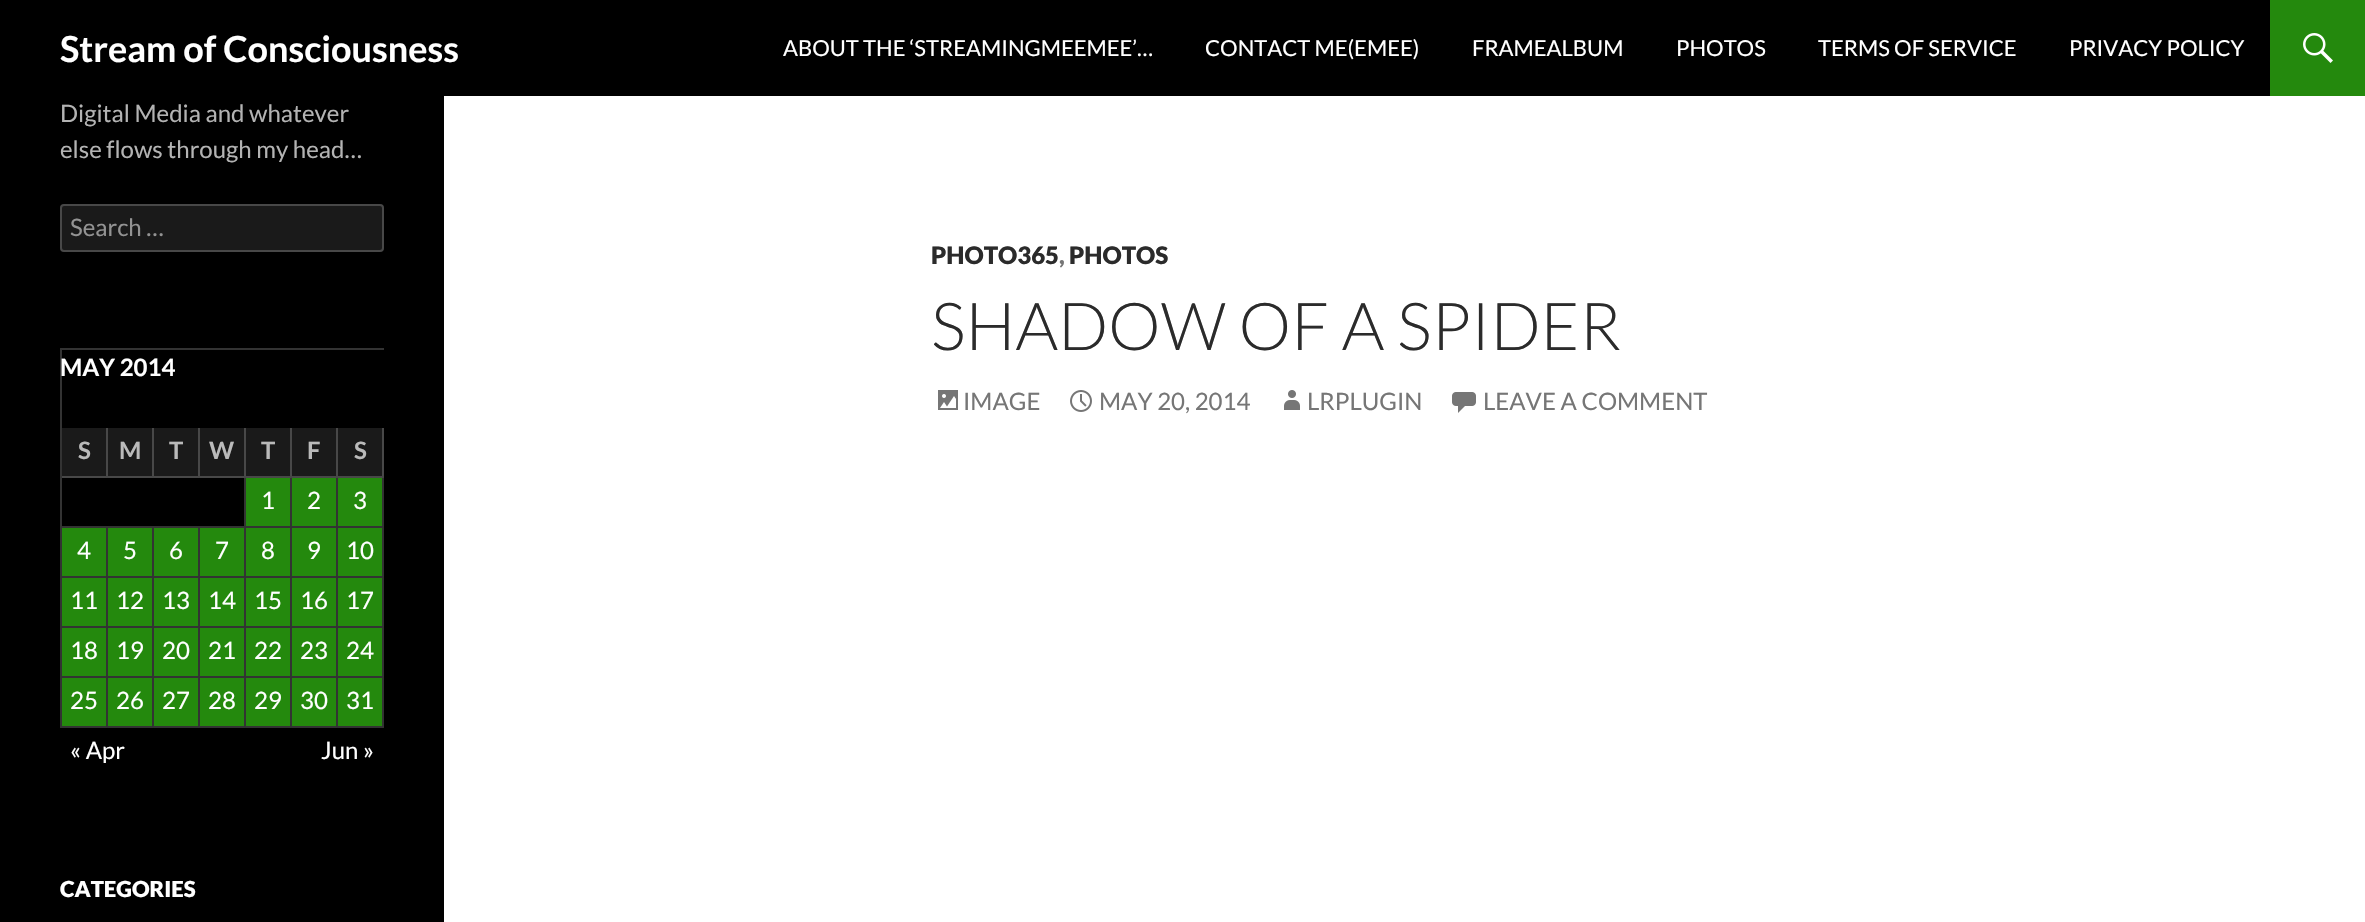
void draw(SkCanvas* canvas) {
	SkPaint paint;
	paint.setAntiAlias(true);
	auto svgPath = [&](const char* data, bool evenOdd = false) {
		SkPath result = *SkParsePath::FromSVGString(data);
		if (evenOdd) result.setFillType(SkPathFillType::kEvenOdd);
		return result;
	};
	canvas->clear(0xffffffff);
	paint.setColor(0xff000000);
	canvas->drawRect(SkRect::MakeXYWH(0, 0, 2270, 96), paint);
	SkFont f1(fontMgr->matchFamilyStyle("Lato", SkFontStyle::Bold()), 36);
	f1.setSubpixel(true);
	paint.setColor(0xffffffff);
	canvas->drawString("Stream of Consciousness", 60, 62, f1, paint);
	SkFont f2(fontMgr->matchFamilyStyle("Lato", SkFontStyle::Normal()), 22);
	f2.setSubpixel(true);
	canvas->drawString("ABOUT THE ‘STREAMINGMEEMEE’…", 783, 56, f2, paint);
	canvas->drawString("CONTACT ME(EMEE)", 1205, 56, f2, paint);
	canvas->drawString("FRAMEALBUM", 1472, 56, f2, paint);
	canvas->drawString("PHOTOS", 1676, 56, f2, paint);
	canvas->drawString("TERMS OF SERVICE", 1818, 56, f2, paint);
	canvas->drawString("PRIVACY POLICY", 2069, 56, f2, paint);
	paint.setColor(0xff24890d);
	canvas->drawRect(SkRect::MakeXYWH(2270, 0, 95, 96), paint);
	canvas->drawImageRect(SkImages::DeferredFromEncodedData(SkData::MakeFromFileName("img1.png")), SkRect::MakeXYWH(2303, 33, 30, 30), SkSamplingOptions());
	paint.setColor(0xff000000);
	canvas->drawRect(SkRect::MakeXYWH(0, 96, 444, 826), paint);
	SkFont f3(fontMgr->matchFamilyStyle("Lato", SkFontStyle::Normal()), 24);
	f3.setSubpixel(true);
	paint.setColor(0xffb3b3b3);
	canvas->drawString("Digital Media and whatever", 60, 122, f3, paint);
	canvas->drawString("else flows through my head…", 60, 158, f3, paint);
	paint.setColor(0xff1a1a1a);
	canvas->drawRoundRect(SkRect::MakeXYWH(60, 204, 324, 48), 4, 4, paint);
	paint.setStroke(true);
	paint.setStrokeWidth(2);
	paint.setColor(0x33ffffff);
	canvas->drawRoundRect(SkRect::MakeXYWH(61, 205, 322, 46), 3, 3, paint);
	paint.setStroke(false);
	paint.setColor(0xff939393);
	canvas->drawString("Search …", 70, 236, f3, paint);
	paint.setColor(0xff333333);
	canvas->drawPath(svgPath("M60 348H384V350H62Z"), paint);
	paint.setColor(0x33ffffff);
	canvas->drawPath(svgPath("M60 728V348L62 350V728Z"), paint);
	SkFont f4(fontMgr->matchFamilyStyle("Lato", SkFontStyle::Bold()), 24);
	f4.setSubpixel(true);
	paint.setColor(0xffffffff);
	canvas->drawString("MAY 2014", 60, 376, f4, paint);
	paint.setColor(0xff1a1a1a);
	canvas->drawRect(SkRect::MakeXYWH(62, 428, 322, 50), paint);
	paint.setColor(0xff484848);
	canvas->drawPath(svgPath("M108 428V478L106 476V428Z"), paint);
	paint.setColor(0x33ffffff);
	canvas->drawPath(svgPath("M108 478H62V476H106Z"), paint);
	paint.setColor(0xffbababa);
	canvas->drawString("S", 78, 459, f4, paint);
	paint.setColor(0xff484848);
	canvas->drawPath(svgPath("M154 428V478L152 476V428Z"), paint);
	paint.setColor(0x33ffffff);
	canvas->drawPath(svgPath("M154 478H108V476H152Z"), paint);
	paint.setColor(0xffbababa);
	canvas->drawString("M", 119, 459, f4, paint);
	paint.setColor(0xff484848);
	canvas->drawPath(svgPath("M200 428V478L198 476V428Z"), paint);
	paint.setColor(0x33ffffff);
	canvas->drawPath(svgPath("M200 478H154V476H198Z"), paint);
	paint.setColor(0xffbababa);
	canvas->drawString("T", 169, 459, f4, paint);
	paint.setColor(0xff484848);
	canvas->drawPath(svgPath("M246 428V478L244 476V428Z"), paint);
	paint.setColor(0x33ffffff);
	canvas->drawPath(svgPath("M246 478H200V476H244Z"), paint);
	paint.setColor(0xffbababa);
	canvas->drawString("W", 209, 459, f4, paint);
	paint.setColor(0xff484848);
	canvas->drawPath(svgPath("M292 428V478L290 476V428Z"), paint);
	paint.setColor(0x33ffffff);
	canvas->drawPath(svgPath("M292 478H246V476H290Z"), paint);
	paint.setColor(0xffbababa);
	canvas->drawString("T", 261, 459, f4, paint);
	paint.setColor(0xff484848);
	canvas->drawPath(svgPath("M338 428V478L336 476V428Z"), paint);
	paint.setColor(0x33ffffff);
	canvas->drawPath(svgPath("M338 478H292V476H336Z"), paint);
	paint.setColor(0xffbababa);
	canvas->drawString("F", 307, 459, f4, paint);
	paint.setColor(0xff484848);
	canvas->drawPath(svgPath("M384 428V478L382 476V428Z"), paint);
	paint.setColor(0x33ffffff);
	canvas->drawPath(svgPath("M384 478H338V476H382Z"), paint);
	paint.setColor(0xffbababa);
	canvas->drawString("S", 354, 459, f4, paint);
	paint.setColor(0xff333333);
	canvas->drawPath(svgPath("M246 478V528L244 526V478Z"), paint);
	paint.setColor(0x33ffffff);
	canvas->drawPath(svgPath("M246 528H62V526H244Z"), paint);
	paint.setColor(0xff333333);
	canvas->drawPath(svgPath("M292 478V528L290 526V478Z"), paint);
	paint.setColor(0x33ffffff);
	canvas->drawPath(svgPath("M292 528H246V526H290Z"), paint);
	paint.setColor(0xff24890d);
	canvas->drawRect(SkRect::MakeXYWH(246, 478, 44, 48), paint);
	paint.setColor(0xffffffff);
	canvas->drawString("1", 261, 509, f3, paint);
	paint.setColor(0xff333333);
	canvas->drawPath(svgPath("M338 478V528L336 526V478Z"), paint);
	paint.setColor(0x33ffffff);
	canvas->drawPath(svgPath("M338 528H292V526H336Z"), paint);
	paint.setColor(0xff24890d);
	canvas->drawRect(SkRect::MakeXYWH(292, 478, 44, 48), paint);
	paint.setColor(0xffffffff);
	canvas->drawString("2", 307, 509, f3, paint);
	paint.setColor(0xff333333);
	canvas->drawPath(svgPath("M384 478V528L382 526V478Z"), paint);
	paint.setColor(0x33ffffff);
	canvas->drawPath(svgPath("M384 528H338V526H382Z"), paint);
	paint.setColor(0xff24890d);
	canvas->drawRect(SkRect::MakeXYWH(338, 478, 44, 48), paint);
	paint.setColor(0xffffffff);
	canvas->drawString("3", 353, 509, f3, paint);
	paint.setColor(0xff333333);
	canvas->drawPath(svgPath("M108 528V578L106 576V528Z"), paint);
	paint.setColor(0x33ffffff);
	canvas->drawPath(svgPath("M108 578H62V576H106Z"), paint);
	paint.setColor(0xff24890d);
	canvas->drawRect(SkRect::MakeXYWH(62, 528, 44, 48), paint);
	paint.setColor(0xffffffff);
	canvas->drawString("4", 77, 559, f3, paint);
	paint.setColor(0xff333333);
	canvas->drawPath(svgPath("M154 528V578L152 576V528Z"), paint);
	paint.setColor(0x33ffffff);
	canvas->drawPath(svgPath("M154 578H108V576H152Z"), paint);
	paint.setColor(0xff24890d);
	canvas->drawRect(SkRect::MakeXYWH(108, 528, 44, 48), paint);
	paint.setColor(0xffffffff);
	canvas->drawString("5", 123, 559, f3, paint);
	paint.setColor(0xff333333);
	canvas->drawPath(svgPath("M200 528V578L198 576V528Z"), paint);
	paint.setColor(0x33ffffff);
	canvas->drawPath(svgPath("M200 578H154V576H198Z"), paint);
	paint.setColor(0xff24890d);
	canvas->drawRect(SkRect::MakeXYWH(154, 528, 44, 48), paint);
	paint.setColor(0xffffffff);
	canvas->drawString("6", 169, 559, f3, paint);
	paint.setColor(0xff333333);
	canvas->drawPath(svgPath("M246 528V578L244 576V528Z"), paint);
	paint.setColor(0x33ffffff);
	canvas->drawPath(svgPath("M246 578H200V576H244Z"), paint);
	paint.setColor(0xff24890d);
	canvas->drawRect(SkRect::MakeXYWH(200, 528, 44, 48), paint);
	paint.setColor(0xffffffff);
	canvas->drawString("7", 215, 559, f3, paint);
	paint.setColor(0xff333333);
	canvas->drawPath(svgPath("M292 528V578L290 576V528Z"), paint);
	paint.setColor(0x33ffffff);
	canvas->drawPath(svgPath("M292 578H246V576H290Z"), paint);
	paint.setColor(0xff24890d);
	canvas->drawRect(SkRect::MakeXYWH(246, 528, 44, 48), paint);
	paint.setColor(0xffffffff);
	canvas->drawString("8", 261, 559, f3, paint);
	paint.setColor(0xff333333);
	canvas->drawPath(svgPath("M338 528V578L336 576V528Z"), paint);
	paint.setColor(0x33ffffff);
	canvas->drawPath(svgPath("M338 578H292V576H336Z"), paint);
	paint.setColor(0xff24890d);
	canvas->drawRect(SkRect::MakeXYWH(292, 528, 44, 48), paint);
	paint.setColor(0xffffffff);
	canvas->drawString("9", 307, 559, f3, paint);
	paint.setColor(0xff333333);
	canvas->drawPath(svgPath("M384 528V578L382 576V528Z"), paint);
	paint.setColor(0x33ffffff);
	canvas->drawPath(svgPath("M384 578H338V576H382Z"), paint);
	paint.setColor(0xff24890d);
	canvas->drawRect(SkRect::MakeXYWH(338, 528, 44, 48), paint);
	paint.setColor(0xffffffff);
	canvas->drawString("10", 346, 559, f3, paint);
	paint.setColor(0xff333333);
	canvas->drawPath(svgPath("M108 578V628L106 626V578Z"), paint);
	paint.setColor(0x33ffffff);
	canvas->drawPath(svgPath("M108 628H62V626H106Z"), paint);
	paint.setColor(0xff24890d);
	canvas->drawRect(SkRect::MakeXYWH(62, 578, 44, 48), paint);
	paint.setColor(0xffffffff);
	canvas->drawString("11", 70, 609, f3, paint);
	paint.setColor(0xff333333);
	canvas->drawPath(svgPath("M154 578V628L152 626V578Z"), paint);
	paint.setColor(0x33ffffff);
	canvas->drawPath(svgPath("M154 628H108V626H152Z"), paint);
	paint.setColor(0xff24890d);
	canvas->drawRect(SkRect::MakeXYWH(108, 578, 44, 48), paint);
	paint.setColor(0xffffffff);
	canvas->drawString("12", 116, 609, f3, paint);
	paint.setColor(0xff333333);
	canvas->drawPath(svgPath("M200 578V628L198 626V578Z"), paint);
	paint.setColor(0x33ffffff);
	canvas->drawPath(svgPath("M200 628H154V626H198Z"), paint);
	paint.setColor(0xff24890d);
	canvas->drawRect(SkRect::MakeXYWH(154, 578, 44, 48), paint);
	paint.setColor(0xffffffff);
	canvas->drawString("13", 162, 609, f3, paint);
	paint.setColor(0xff333333);
	canvas->drawPath(svgPath("M246 578V628L244 626V578Z"), paint);
	paint.setColor(0x33ffffff);
	canvas->drawPath(svgPath("M246 628H200V626H244Z"), paint);
	paint.setColor(0xff24890d);
	canvas->drawRect(SkRect::MakeXYWH(200, 578, 44, 48), paint);
	paint.setColor(0xffffffff);
	canvas->drawString("14", 208, 609, f3, paint);
	paint.setColor(0xff333333);
	canvas->drawPath(svgPath("M292 578V628L290 626V578Z"), paint);
	paint.setColor(0x33ffffff);
	canvas->drawPath(svgPath("M292 628H246V626H290Z"), paint);
	paint.setColor(0xff24890d);
	canvas->drawRect(SkRect::MakeXYWH(246, 578, 44, 48), paint);
	paint.setColor(0xffffffff);
	canvas->drawString("15", 254, 609, f3, paint);
	paint.setColor(0xff333333);
	canvas->drawPath(svgPath("M338 578V628L336 626V578Z"), paint);
	paint.setColor(0x33ffffff);
	canvas->drawPath(svgPath("M338 628H292V626H336Z"), paint);
	paint.setColor(0xff24890d);
	canvas->drawRect(SkRect::MakeXYWH(292, 578, 44, 48), paint);
	paint.setColor(0xffffffff);
	canvas->drawString("16", 300, 609, f3, paint);
	paint.setColor(0xff333333);
	canvas->drawPath(svgPath("M384 578V628L382 626V578Z"), paint);
	paint.setColor(0x33ffffff);
	canvas->drawPath(svgPath("M384 628H338V626H382Z"), paint);
	paint.setColor(0xff24890d);
	canvas->drawRect(SkRect::MakeXYWH(338, 578, 44, 48), paint);
	paint.setColor(0xffffffff);
	canvas->drawString("17", 346, 609, f3, paint);
	paint.setColor(0xff333333);
	canvas->drawPath(svgPath("M108 628V678L106 676V628Z"), paint);
	paint.setColor(0x33ffffff);
	canvas->drawPath(svgPath("M108 678H62V676H106Z"), paint);
	paint.setColor(0xff24890d);
	canvas->drawRect(SkRect::MakeXYWH(62, 628, 44, 48), paint);
	paint.setColor(0xffffffff);
	canvas->drawString("18", 70, 659, f3, paint);
	paint.setColor(0xff333333);
	canvas->drawPath(svgPath("M154 628V678L152 676V628Z"), paint);
	paint.setColor(0x33ffffff);
	canvas->drawPath(svgPath("M154 678H108V676H152Z"), paint);
	paint.setColor(0xff24890d);
	canvas->drawRect(SkRect::MakeXYWH(108, 628, 44, 48), paint);
	paint.setColor(0xffffffff);
	canvas->drawString("19", 116, 659, f3, paint);
	paint.setColor(0xff333333);
	canvas->drawPath(svgPath("M200 628V678L198 676V628Z"), paint);
	paint.setColor(0x33ffffff);
	canvas->drawPath(svgPath("M200 678H154V676H198Z"), paint);
	paint.setColor(0xff24890d);
	canvas->drawRect(SkRect::MakeXYWH(154, 628, 44, 48), paint);
	paint.setColor(0xffffffff);
	canvas->drawString("20", 162, 659, f3, paint);
	paint.setColor(0xff333333);
	canvas->drawPath(svgPath("M246 628V678L244 676V628Z"), paint);
	paint.setColor(0x33ffffff);
	canvas->drawPath(svgPath("M246 678H200V676H244Z"), paint);
	paint.setColor(0xff24890d);
	canvas->drawRect(SkRect::MakeXYWH(200, 628, 44, 48), paint);
	paint.setColor(0xffffffff);
	canvas->drawString("21", 208, 659, f3, paint);
	paint.setColor(0xff333333);
	canvas->drawPath(svgPath("M292 628V678L290 676V628Z"), paint);
	paint.setColor(0x33ffffff);
	canvas->drawPath(svgPath("M292 678H246V676H290Z"), paint);
	paint.setColor(0xff24890d);
	canvas->drawRect(SkRect::MakeXYWH(246, 628, 44, 48), paint);
	paint.setColor(0xffffffff);
	canvas->drawString("22", 254, 659, f3, paint);
	paint.setColor(0xff333333);
	canvas->drawPath(svgPath("M338 628V678L336 676V628Z"), paint);
	paint.setColor(0x33ffffff);
	canvas->drawPath(svgPath("M338 678H292V676H336Z"), paint);
	paint.setColor(0xff24890d);
	canvas->drawRect(SkRect::MakeXYWH(292, 628, 44, 48), paint);
	paint.setColor(0xffffffff);
	canvas->drawString("23", 300, 659, f3, paint);
	paint.setColor(0xff333333);
	canvas->drawPath(svgPath("M384 628V678L382 676V628Z"), paint);
	paint.setColor(0x33ffffff);
	canvas->drawPath(svgPath("M384 678H338V676H382Z"), paint);
	paint.setColor(0xff24890d);
	canvas->drawRect(SkRect::MakeXYWH(338, 628, 44, 48), paint);
	paint.setColor(0xffffffff);
	canvas->drawString("24", 346, 659, f3, paint);
	paint.setColor(0xff333333);
	canvas->drawPath(svgPath("M108 678V728L106 726V678Z"), paint);
	paint.setColor(0x33ffffff);
	canvas->drawPath(svgPath("M108 728H62V726H106Z"), paint);
	paint.setColor(0xff24890d);
	canvas->drawRect(SkRect::MakeXYWH(62, 678, 44, 48), paint);
	paint.setColor(0xffffffff);
	canvas->drawString("25", 70, 709, f3, paint);
	paint.setColor(0xff333333);
	canvas->drawPath(svgPath("M154 678V728L152 726V678Z"), paint);
	paint.setColor(0x33ffffff);
	canvas->drawPath(svgPath("M154 728H108V726H152Z"), paint);
	paint.setColor(0xff24890d);
	canvas->drawRect(SkRect::MakeXYWH(108, 678, 44, 48), paint);
	paint.setColor(0xffffffff);
	canvas->drawString("26", 116, 709, f3, paint);
	paint.setColor(0xff333333);
	canvas->drawPath(svgPath("M200 678V728L198 726V678Z"), paint);
	paint.setColor(0x33ffffff);
	canvas->drawPath(svgPath("M200 728H154V726H198Z"), paint);
	paint.setColor(0xff24890d);
	canvas->drawRect(SkRect::MakeXYWH(154, 678, 44, 48), paint);
	paint.setColor(0xffffffff);
	canvas->drawString("27", 162, 709, f3, paint);
	paint.setColor(0xff333333);
	canvas->drawPath(svgPath("M246 678V728L244 726V678Z"), paint);
	paint.setColor(0x33ffffff);
	canvas->drawPath(svgPath("M246 728H200V726H244Z"), paint);
	paint.setColor(0xff24890d);
	canvas->drawRect(SkRect::MakeXYWH(200, 678, 44, 48), paint);
	paint.setColor(0xffffffff);
	canvas->drawString("28", 208, 709, f3, paint);
	paint.setColor(0xff333333);
	canvas->drawPath(svgPath("M292 678V728L290 726V678Z"), paint);
	paint.setColor(0x33ffffff);
	canvas->drawPath(svgPath("M292 728H246V726H290Z"), paint);
	paint.setColor(0xff24890d);
	canvas->drawRect(SkRect::MakeXYWH(246, 678, 44, 48), paint);
	paint.setColor(0xffffffff);
	canvas->drawString("29", 254, 709, f3, paint);
	paint.setColor(0xff333333);
	canvas->drawPath(svgPath("M338 678V728L336 726V678Z"), paint);
	paint.setColor(0x33ffffff);
	canvas->drawPath(svgPath("M338 728H292V726H336Z"), paint);
	paint.setColor(0xff24890d);
	canvas->drawRect(SkRect::MakeXYWH(292, 678, 44, 48), paint);
	paint.setColor(0xffffffff);
	canvas->drawString("30", 300, 709, f3, paint);
	paint.setColor(0xff333333);
	canvas->drawPath(svgPath("M384 678V728L382 726V678Z"), paint);
	paint.setColor(0x33ffffff);
	canvas->drawPath(svgPath("M384 728H338V726H382Z"), paint);
	paint.setColor(0xff24890d);
	canvas->drawRect(SkRect::MakeXYWH(338, 678, 44, 48), paint);
	paint.setColor(0xffffffff);
	canvas->drawString("31", 346, 709, f3, paint);
	canvas->drawString("« Apr", 70, 759, f3, paint);
	canvas->drawString("Jun »", 321, 759, f3, paint);
	SkFont f5(fontMgr->matchFamilyStyle("Lato", SkFontStyle(900, SkFontStyle::kNormal_Width, SkFontStyle::kUpright_Slant)), 22);
	f5.setSubpixel(true);
	canvas->drawString("CATEGORIES", 60, 897, f5, paint);
	SkFont f6(fontMgr->matchFamilyStyle("Lato", SkFontStyle(900, SkFontStyle::kNormal_Width, SkFontStyle::kUpright_Slant)), 24);
	f6.setSubpixel(true);
	paint.setColor(0xff2b2b2b);
	canvas->drawString("PHOTO365", 931, 264, f6, paint);
	paint.setColor(0xff767676);
	canvas->drawString(",", 1059, 264, f6, paint);
	paint.setColor(0xff2b2b2b);
	canvas->drawString("PHOTOS", 1069, 264, f6, paint);
	SkFont f7(fontMgr->matchFamilyStyle("Lato", SkFontStyle(300, SkFontStyle::kNormal_Width, SkFontStyle::kUpright_Slant)), 66);
	f7.setSubpixel(true);
	canvas->drawString("SHADOW OF A SPIDER", 931, 350, f7, paint);
	canvas->drawImageRect(SkImages::DeferredFromEncodedData(SkData::MakeFromFileName("img2.png")), SkRect::MakeXYWH(938, 390, 20, 20), SkSamplingOptions());
	paint.setColor(0xff767676);
	canvas->drawString("IMAGE", 963, 410, f3, paint);
	canvas->drawImageRect(SkImages::DeferredFromEncodedData(SkData::MakeFromFileName("img3.png")), SkRect::MakeXYWH(1070, 390, 22, 22), SkSamplingOptions());
	canvas->drawString("MAY 20, 2014", 1099, 410, f3, paint);
	canvas->drawImageRect(SkImages::DeferredFromEncodedData(SkData::MakeFromFileName("img4.png")), SkRect::MakeXYWH(1284, 390, 16, 20), SkSamplingOptions());
	canvas->drawString("LRPLUGIN", 1307, 410, f3, paint);
	canvas->drawImageRect(SkImages::DeferredFromEncodedData(SkData::MakeFromFileName("img5.png")), SkRect::MakeXYWH(1452, 392, 24, 21), SkSamplingOptions());
	canvas->drawString("LEAVE A COMMENT", 1483, 410, f3, paint);
}
